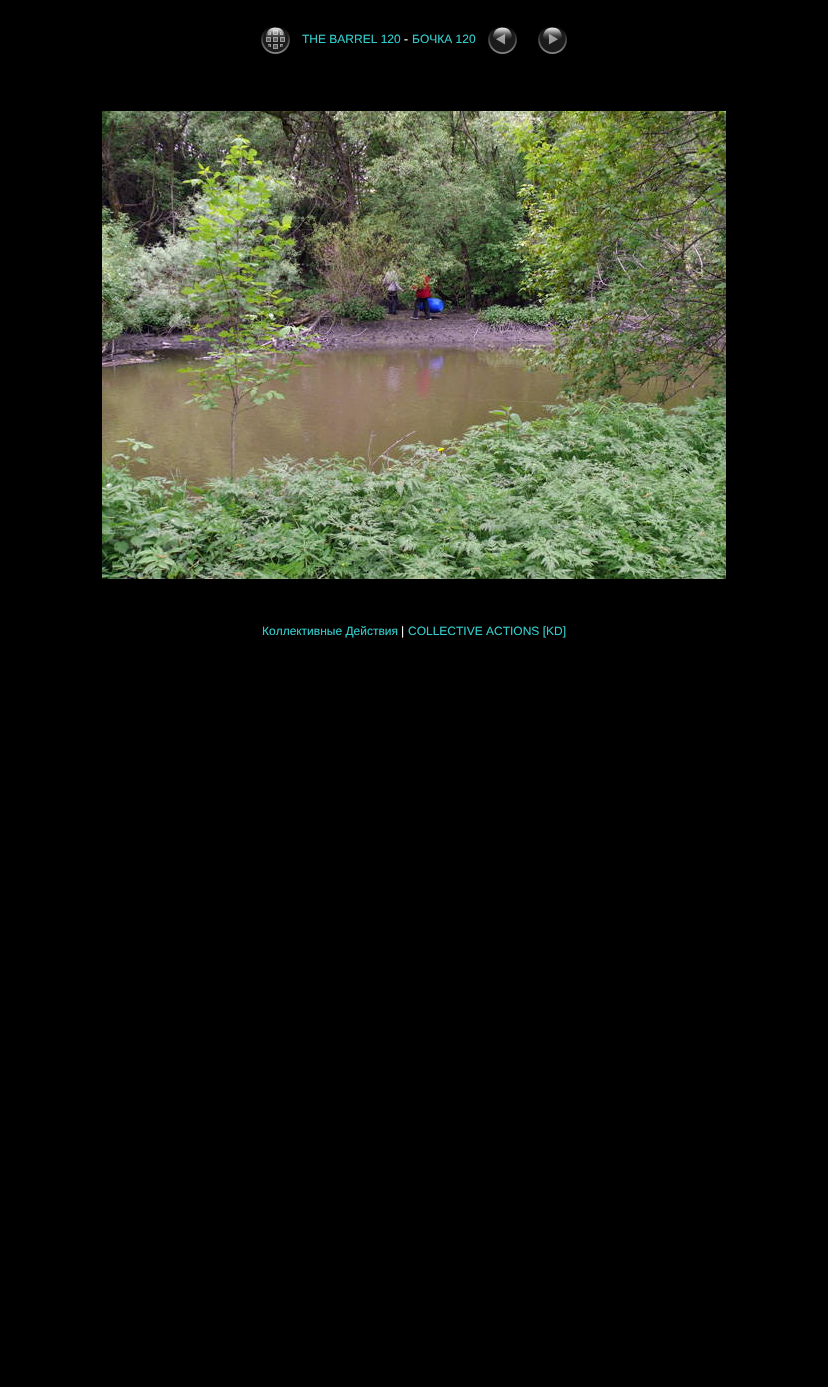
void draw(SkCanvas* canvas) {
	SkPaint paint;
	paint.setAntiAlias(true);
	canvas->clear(0xff000000);
	canvas->drawImageRect(SkImages::DeferredFromEncodedData(SkData::MakeFromFileName("img1.png")), SkRect::MakeXYWH(261, 27, 29, 27), SkSamplingOptions());
	SkFont f1(fontMgr->matchFamilyStyle("Liberation Sans", SkFontStyle::Normal()), 12);
	f1.setSubpixel(true);
	paint.setColor(0xff33cccc);
	canvas->drawString("THE BARREL 120", 302, 43, f1, paint);
	paint.setColor(0xfffefefe);
	canvas->drawString("-", 404, 43, f1, paint);
	paint.setColor(0xff33cccc);
	canvas->drawString("БОЧКА 120", 412, 43, f1, paint);
	canvas->drawImageRect(SkImages::DeferredFromEncodedData(SkData::MakeFromFileName("img2.png")), SkRect::MakeXYWH(488, 27, 29, 27), SkSamplingOptions());
	canvas->drawImageRect(SkImages::DeferredFromEncodedData(SkData::MakeFromFileName("img3.png")), SkRect::MakeXYWH(538, 27, 29, 27), SkSamplingOptions());
	canvas->drawImageRect(SkImages::DeferredFromEncodedData(SkData::MakeFromFileName("img4.png")), SkRect::MakeXYWH(102, 111, 624, 468), SkSamplingOptions());
	canvas->drawString("Коллективные Действия", 262, 635, f1, paint);
	paint.setColor(0xfffefefe);
	canvas->drawString("|", 401, 635, f1, paint);
	paint.setColor(0xff33cccc);
	canvas->drawString("COLLECTIVE ACTIONS [KD]", 408, 635, f1, paint);
}
